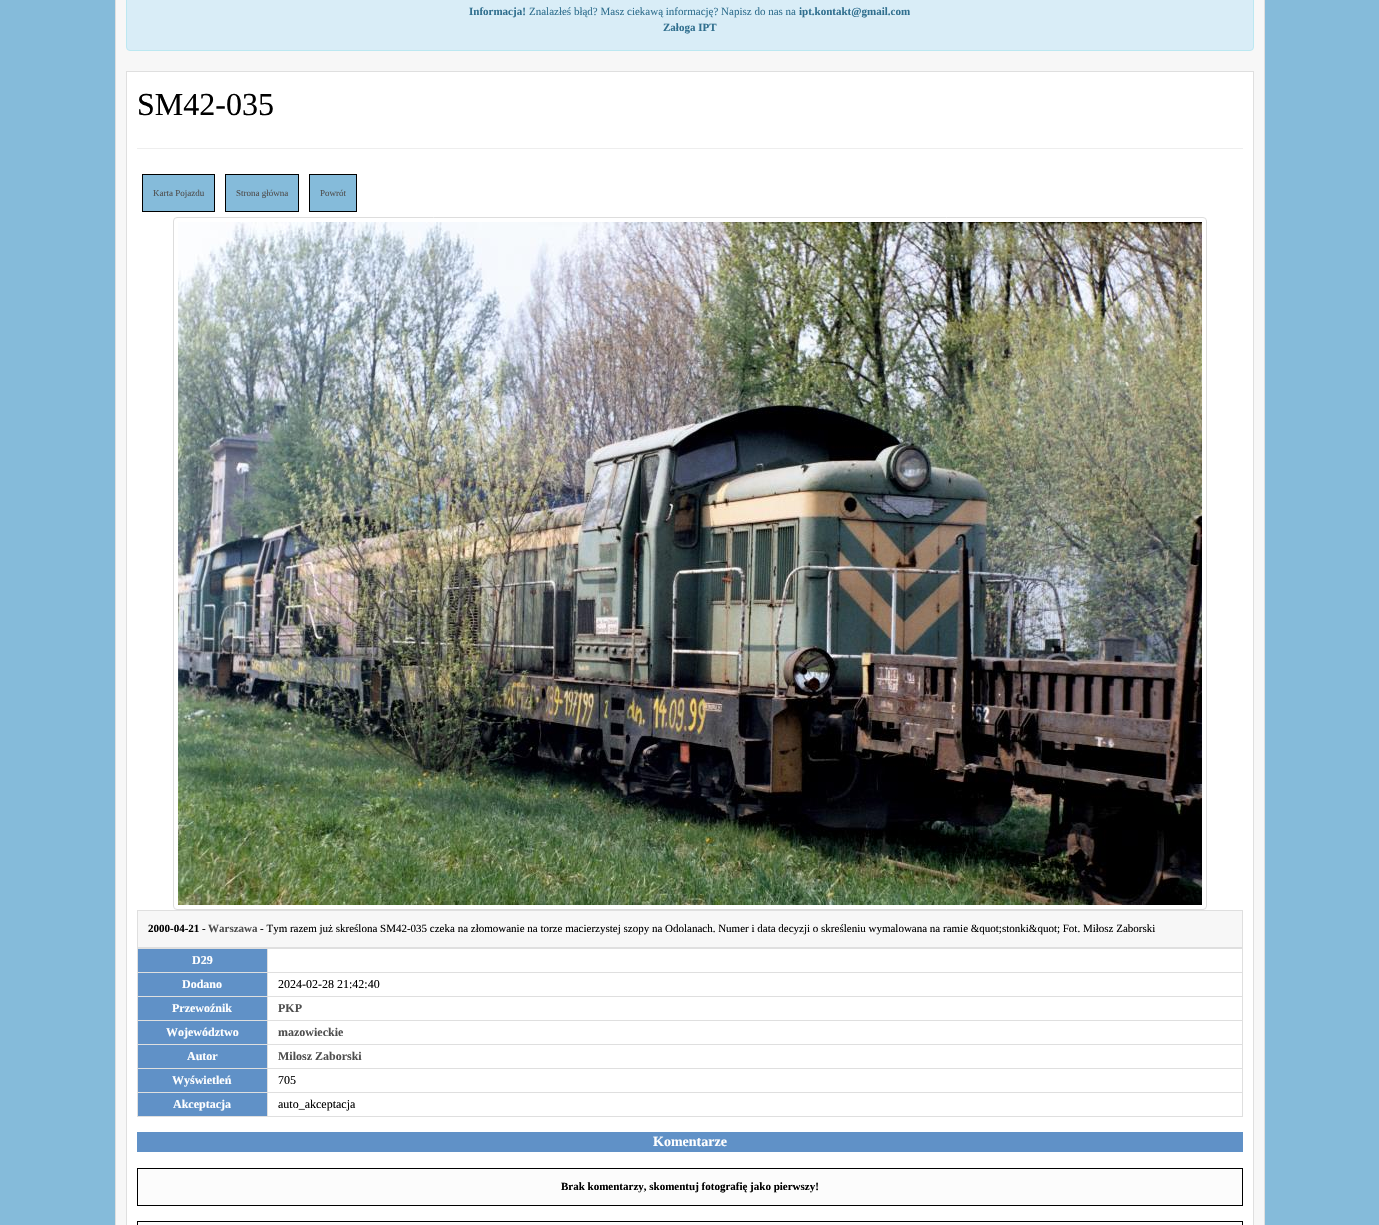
void draw(SkCanvas* canvas) {
	SkPaint paint;
	paint.setAntiAlias(true);
	canvas->clear(0xff85bbda);
	paint.setColor(0xfff7f7f7);
	canvas->drawRect(SkRect::MakeXYWH(116, 0, 1148, 1225), paint);
	paint.setColor(0xffdfdfdf);
	canvas->drawRect(SkRect::MakeXYWH(1264, 0, 1, 1225), paint);
	canvas->drawRect(SkRect::MakeXYWH(115, 0, 1, 1225), paint);
	paint.setColor(0xffd9edf7);
	canvas->drawRoundRect(SkRect::MakeXYWH(126.5, -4.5, 1127, 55), 3.5, 3.5, paint);
	paint.setStroke(true);
	paint.setStrokeWidth(1);
	paint.setColor(0xffbce8f1);
	canvas->drawRoundRect(SkRect::MakeXYWH(126.5, -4.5, 1127, 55), 3.5, 3.5, paint);
	SkFont f1(fontMgr->matchFamilyStyle("Liberation Serif", SkFontStyle::Bold()), 11);
	f1.setSubpixel(true);
	paint.setStroke(false);
	paint.setColor(0xff31708f);
	canvas->drawString("Informacja!", 469, 15, f1, paint);
	SkFont f2(fontMgr->matchFamilyStyle("Liberation Serif", SkFontStyle::Normal()), 11);
	f2.setSubpixel(true);
	canvas->drawString("Znalazłeś błąd? Masz ciekawą informację? Napisz do nas na", 529, 15, f2, paint);
	canvas->drawString("ipt.kontakt@gmail.com", 799, 15, f1, paint);
	canvas->drawString("Załoga IPT", 663, 31, f1, paint);
	paint.setColor(0xffffffff);
	canvas->drawRect(SkRect::MakeXYWH(126.5, 71.5, 1127, 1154), paint);
	paint.setStroke(true);
	paint.setColor(0xffdfdfdf);
	canvas->drawRect(SkRect::MakeXYWH(126.5, 71.5, 1127, 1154), paint);
	SkFont f3(fontMgr->matchFamilyStyle("Liberation Serif", SkFontStyle::Normal()), 32);
	f3.setSubpixel(true);
	paint.setStroke(false);
	paint.setColor(0xff000000);
	canvas->drawString("SM42-035", 137, 115, f3, paint);
	paint.setColor(0xffeeeeee);
	canvas->drawRect(SkRect::MakeXYWH(137, 148, 1106, 1), paint);
	paint.setColor(0xff85bbda);
	canvas->drawRect(SkRect::MakeXYWH(142.5, 174.5, 72, 37), paint);
	paint.setStroke(true);
	paint.setColor(0xff000000);
	canvas->drawRect(SkRect::MakeXYWH(142.5, 174.5, 72, 37), paint);
	SkFont f4(fontMgr->matchFamilyStyle("Liberation Serif", SkFontStyle::Normal()), 9);
	f4.setSubpixel(true);
	paint.setStroke(false);
	paint.setColor(0xff4f4f4f);
	canvas->drawString("Karta Pojazdu", 153, 196, f4, paint);
	paint.setColor(0xff85bbda);
	canvas->drawRect(SkRect::MakeXYWH(225.5, 174.5, 73, 37), paint);
	paint.setStroke(true);
	paint.setColor(0xff000000);
	canvas->drawRect(SkRect::MakeXYWH(225.5, 174.5, 73, 37), paint);
	paint.setStroke(false);
	paint.setColor(0xff4f4f4f);
	canvas->drawString("Strona główna", 236, 196, f4, paint);
	paint.setColor(0xff85bbda);
	canvas->drawRect(SkRect::MakeXYWH(309.5, 174.5, 47, 37), paint);
	paint.setStroke(true);
	paint.setColor(0xff000000);
	canvas->drawRect(SkRect::MakeXYWH(309.5, 174.5, 47, 37), paint);
	paint.setStroke(false);
	paint.setColor(0xff4f4f4f);
	canvas->drawString("Powrót", 320, 196, f4, paint);
	paint.setStroke(true);
	paint.setColor(0xffdddddd);
	canvas->drawRoundRect(SkRect::MakeXYWH(173.5, 217.5, 1033, 692), 3.5, 3.5, paint);
	canvas->drawImageRect(SkImages::DeferredFromEncodedData(SkData::MakeFromFileName("img1.png")), SkRect::MakeXYWH(178, 222, 1024, 683), SkSamplingOptions());
	paint.setStroke(false);
	paint.setColor(0xfff7f7f7);
	canvas->drawRect(SkRect::MakeXYWH(137.5, 910.5, 1105, 37), paint);
	paint.setStroke(true);
	paint.setColor(0xffdfdfdf);
	canvas->drawRect(SkRect::MakeXYWH(137.5, 910.5, 1105, 37), paint);
	paint.setStroke(false);
	paint.setColor(0xff000000);
	canvas->drawString("2000-04-21", 148, 932, f1, paint);
	canvas->drawString("-", 202, 932, f2, paint);
	paint.setColor(0xff4f4f4f);
	canvas->drawString("Warszawa", 208, 932, f1, paint);
	paint.setColor(0xff000000);
	canvas->drawString("- Tym razem już skreślona SM42-035 czeka na złomowanie na torze macierzystej szopy na Odolanach. Numer i data decyzji o skreśleniu wymalowana na ramie &quot;stonki&quot; Fot. Miłosz Zaborski", 260, 932, f2, paint);
	paint.setColor(0xffdfdfdf);
	canvas->drawRect(SkRect::MakeXYWH(137, 948, 1106, 1), paint);
	canvas->drawRect(SkRect::MakeXYWH(1242, 948, 1, 169), paint);
	canvas->drawRect(SkRect::MakeXYWH(137, 1116, 1106, 1), paint);
	canvas->drawRect(SkRect::MakeXYWH(137, 948, 1, 169), paint);
	paint.setColor(0xff6091c7);
	canvas->drawRect(SkRect::MakeXYWH(138, 949, 129, 23), paint);
	SkFont f5(fontMgr->matchFamilyStyle("Liberation Serif", SkFontStyle::Bold()), 12);
	f5.setSubpixel(true);
	paint.setColor(0xffffffff);
	canvas->drawString("D29", 192, 964, f5, paint);
	paint.setColor(0xffdfdfdf);
	canvas->drawRect(SkRect::MakeXYWH(267, 972, 976, 1), paint);
	canvas->drawRect(SkRect::MakeXYWH(267, 996, 976, 1), paint);
	canvas->drawRect(SkRect::MakeXYWH(267, 1020, 976, 1), paint);
	canvas->drawRect(SkRect::MakeXYWH(267, 1044, 976, 1), paint);
	canvas->drawRect(SkRect::MakeXYWH(267, 1068, 976, 1), paint);
	canvas->drawRect(SkRect::MakeXYWH(267, 1092, 976, 1), paint);
	canvas->drawRect(SkRect::MakeXYWH(267, 1092, 1, 25), paint);
	canvas->drawRect(SkRect::MakeXYWH(137, 1092, 131, 1), paint);
	canvas->drawRect(SkRect::MakeXYWH(267, 1068, 1, 25), paint);
	canvas->drawRect(SkRect::MakeXYWH(137, 1068, 131, 1), paint);
	canvas->drawRect(SkRect::MakeXYWH(267, 1044, 1, 25), paint);
	canvas->drawRect(SkRect::MakeXYWH(137, 1044, 131, 1), paint);
	canvas->drawRect(SkRect::MakeXYWH(267, 1020, 1, 25), paint);
	canvas->drawRect(SkRect::MakeXYWH(137, 1020, 131, 1), paint);
	canvas->drawRect(SkRect::MakeXYWH(267, 996, 1, 25), paint);
	canvas->drawRect(SkRect::MakeXYWH(137, 996, 131, 1), paint);
	canvas->drawRect(SkRect::MakeXYWH(267, 972, 1, 25), paint);
	canvas->drawRect(SkRect::MakeXYWH(137, 972, 131, 1), paint);
	canvas->drawRect(SkRect::MakeXYWH(267, 948, 1, 25), paint);
	paint.setColor(0xff6091c7);
	canvas->drawRect(SkRect::MakeXYWH(138, 973, 129, 23), paint);
	paint.setColor(0xffffffff);
	canvas->drawString("Dodano", 182, 988, f5, paint);
	SkFont f6(fontMgr->matchFamilyStyle("Liberation Serif", SkFontStyle::Normal()), 12);
	f6.setSubpixel(true);
	paint.setColor(0xff000000);
	canvas->drawString("2024-02-28 21:42:40", 278, 988, f6, paint);
	paint.setColor(0xff6091c7);
	canvas->drawRect(SkRect::MakeXYWH(138, 997, 129, 23), paint);
	paint.setColor(0xffffffff);
	canvas->drawString("Przewoźnik", 172, 1012, f5, paint);
	paint.setColor(0xff4f4f4f);
	canvas->drawString("PKP", 278, 1012, f5, paint);
	paint.setColor(0xff6091c7);
	canvas->drawRect(SkRect::MakeXYWH(138, 1021, 129, 23), paint);
	paint.setColor(0xffffffff);
	canvas->drawString("Województwo", 166, 1036, f5, paint);
	paint.setColor(0xff4f4f4f);
	canvas->drawString("mazowieckie", 278, 1036, f5, paint);
	paint.setColor(0xff6091c7);
	canvas->drawRect(SkRect::MakeXYWH(138, 1045, 129, 23), paint);
	paint.setColor(0xffffffff);
	canvas->drawString("Autor", 187, 1060, f5, paint);
	paint.setColor(0xff4f4f4f);
	canvas->drawString("Milosz Zaborski", 278, 1060, f5, paint);
	paint.setColor(0xff6091c7);
	canvas->drawRect(SkRect::MakeXYWH(138, 1069, 129, 23), paint);
	paint.setColor(0xffffffff);
	canvas->drawString("Wyświetleń", 172, 1084, f5, paint);
	paint.setColor(0xff000000);
	canvas->drawString("705", 278, 1084, f6, paint);
	paint.setColor(0xff6091c7);
	canvas->drawRect(SkRect::MakeXYWH(138, 1093, 129, 23), paint);
	paint.setColor(0xffffffff);
	canvas->drawString("Akceptacja", 173, 1108, f5, paint);
	paint.setColor(0xff000000);
	canvas->drawString("auto_akceptacja", 278, 1108, f6, paint);
	paint.setColor(0xff6091c7);
	canvas->drawRect(SkRect::MakeXYWH(137, 1132, 1106, 20), paint);
	SkFont f7(fontMgr->matchFamilyStyle("Liberation Serif", SkFontStyle::Bold()), 14);
	f7.setSubpixel(true);
	paint.setColor(0xffffffff);
	canvas->drawString("Komentarze", 653, 1146, f7, paint);
	paint.setColor(0xfffcfcfc);
	canvas->drawRect(SkRect::MakeXYWH(137.5, 1168.5, 1105, 37), paint);
	paint.setStroke(true);
	paint.setColor(0xff000000);
	canvas->drawRect(SkRect::MakeXYWH(137.5, 1168.5, 1105, 37), paint);
	paint.setStroke(false);
	canvas->drawString("Brak komentarzy, skomentuj fotografię jako pierwszy!", 561, 1190, f1, paint);
	paint.setColor(0xfffcfcfc);
	canvas->drawRect(SkRect::MakeXYWH(137.5, 1221.5, 1105, 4), paint);
	paint.setStroke(true);
	paint.setColor(0xff000000);
	canvas->drawRect(SkRect::MakeXYWH(137.5, 1221.5, 1105, 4), paint);
}
